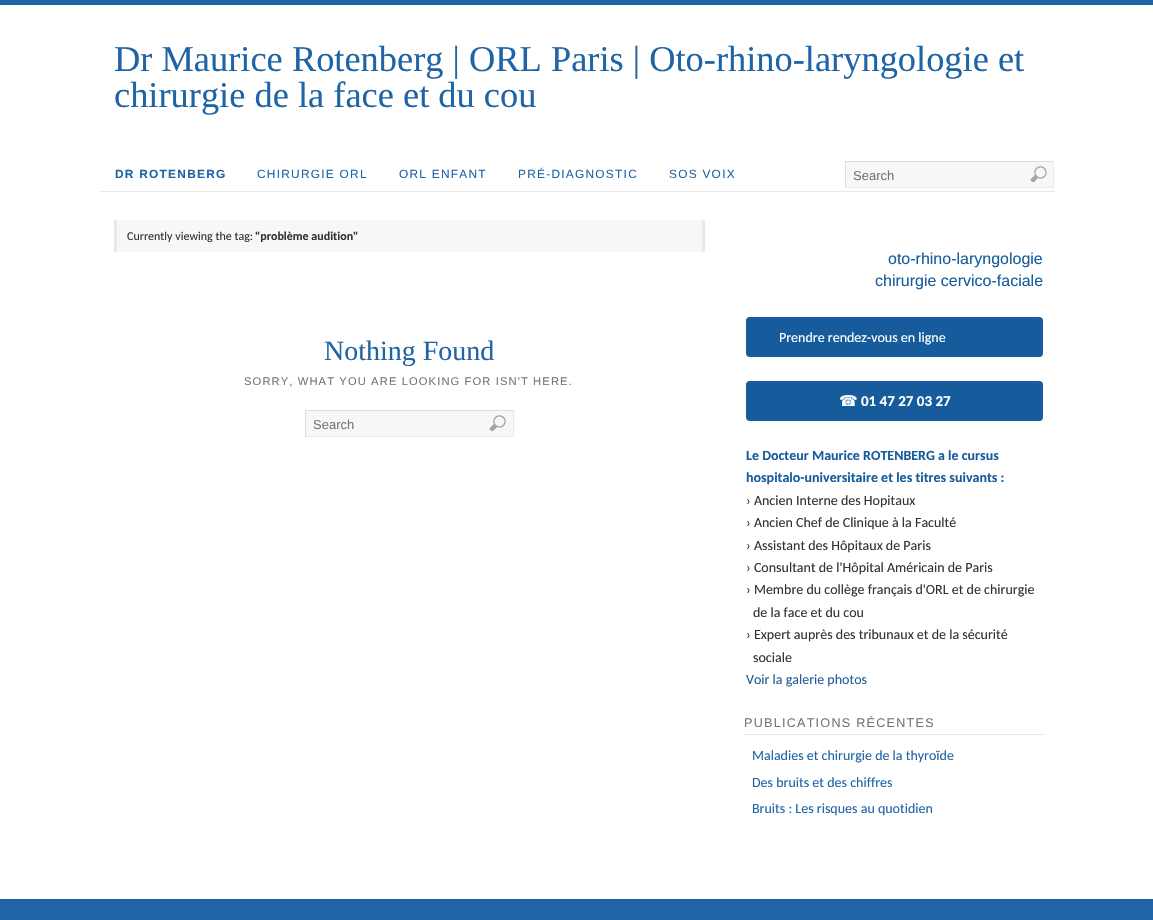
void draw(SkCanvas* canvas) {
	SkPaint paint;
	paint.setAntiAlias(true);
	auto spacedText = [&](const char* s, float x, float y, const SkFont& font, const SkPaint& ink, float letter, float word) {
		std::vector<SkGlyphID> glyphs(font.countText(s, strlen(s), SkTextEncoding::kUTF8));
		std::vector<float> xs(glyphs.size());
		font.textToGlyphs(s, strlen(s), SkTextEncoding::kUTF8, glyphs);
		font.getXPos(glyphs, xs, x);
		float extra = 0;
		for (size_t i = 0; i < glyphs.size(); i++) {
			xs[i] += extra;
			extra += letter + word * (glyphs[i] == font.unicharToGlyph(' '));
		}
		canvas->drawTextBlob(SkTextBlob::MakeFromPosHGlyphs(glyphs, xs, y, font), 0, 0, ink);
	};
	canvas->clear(0xff1f64a5);
	paint.setColor(0xffffffff);
	canvas->drawRect(SkRect::MakeXYWH(0, 5, 1153, 894), paint);
	SkFont f1(fontMgr->matchFamilyStyle("Liberation Serif", SkFontStyle::Normal()), 36.4);
	f1.setSubpixel(true);
	paint.setColor(0xff1f64a5);
	canvas->drawString("Dr Maurice Rotenberg | ORL Paris | Oto-rhino-laryngologie et", 114, 71, f1, paint);
	canvas->drawString("chirurgie de la face et du cou", 114, 107, f1, paint);
	paint.setColor(0xffe9e9e9);
	canvas->drawRect(SkRect::MakeXYWH(99, 191, 956, 1), paint);
	SkFont f2(fontMgr->matchFamilyStyle("Liberation Sans", SkFontStyle::Bold()), 11.9);
	f2.setSubpixel(true);
	paint.setColor(0xff1f64a5);
	spacedText("DR ROTENBERG", 115, 178, f2, paint, 1.25, 0);
	SkFont f3(fontMgr->matchFamilyStyle("Liberation Sans", SkFontStyle::Normal()), 11.9);
	f3.setSubpixel(true);
	spacedText("CHIRURGIE ORL", 257, 178, f3, paint, 1.25, 0);
	spacedText("ORL ENFANT", 399, 178, f3, paint, 1.25, 0);
	spacedText("PRÉ-DIAGNOSTIC", 518, 178, f3, paint, 1.25, 0);
	spacedText("SOS VOIX", 669, 178, f3, paint, 1.25, 0);
	paint.setColor(0xfff7f7f7);
	canvas->drawRect(SkRect::MakeXYWH(846, 162, 207, 25), paint);
	paint.setColor(0xffdddddd);
	canvas->drawRect(SkRect::MakeXYWH(845, 161, 209, 1), paint);
	paint.setColor(0xffe9e9e9);
	canvas->drawRect(SkRect::MakeXYWH(1053, 161, 1, 27), paint);
	canvas->drawRect(SkRect::MakeXYWH(845, 187, 209, 1), paint);
	paint.setColor(0xffdddddd);
	canvas->drawRect(SkRect::MakeXYWH(845, 161, 1, 27), paint);
	SkFont f4(fontMgr->matchFamilyStyle("Liberation Sans", SkFontStyle::Normal()), 13);
	f4.setSubpixel(true);
	paint.setColor(0xff757575);
	canvas->drawString("Search", 853, 180, f4, paint);
	canvas->drawImageRect(SkImages::DeferredFromEncodedData(SkData::MakeFromFileName("img1.png")), SkRect::MakeXYWH(1030, 166, 17, 16), SkSamplingOptions());
	paint.setColor(0xfff7f7f7);
	canvas->drawRect(SkRect::MakeXYWH(117, 220, 585, 32), paint);
	paint.setColor(0xffe9e9e9);
	canvas->drawRect(SkRect::MakeXYWH(702, 220, 3, 32), paint);
	canvas->drawRect(SkRect::MakeXYWH(114, 220, 3, 32), paint);
	SkFont f5(fontMgr->matchFamilyStyle("Carlito", SkFontStyle::Normal()), 12);
	f5.setSubpixel(true);
	paint.setColor(0xff333333);
	canvas->drawString("Currently viewing the tag:", 127, 240, f5, paint);
	SkFont f6(fontMgr->matchFamilyStyle("Carlito", SkFontStyle::Bold()), 12);
	f6.setSubpixel(true);
	canvas->drawString("\"problème audition\"", 255, 240, f6, paint);
	SkFont f7(fontMgr->matchFamilyStyle("Liberation Serif", SkFontStyle::Normal()), 28);
	f7.setSubpixel(true);
	paint.setColor(0xff1f64a5);
	canvas->drawString("Nothing Found", 324, 360, f7, paint);
	SkFont f8(fontMgr->matchFamilyStyle("Liberation Sans", SkFontStyle::Normal()), 11.2);
	f8.setSubpixel(true);
	paint.setColor(0xff757575);
	spacedText("SORRY, WHAT YOU ARE LOOKING FOR ISN'T HERE.", 244, 385, f8, paint, 1.1, 0);
	paint.setColor(0xfff7f7f7);
	canvas->drawRect(SkRect::MakeXYWH(306, 411, 207, 25), paint);
	paint.setColor(0xffdddddd);
	canvas->drawRect(SkRect::MakeXYWH(305, 410, 209, 1), paint);
	paint.setColor(0xffe9e9e9);
	canvas->drawRect(SkRect::MakeXYWH(513, 410, 1, 27), paint);
	canvas->drawRect(SkRect::MakeXYWH(305, 436, 209, 1), paint);
	paint.setColor(0xffdddddd);
	canvas->drawRect(SkRect::MakeXYWH(305, 410, 1, 27), paint);
	paint.setColor(0xff757575);
	canvas->drawString("Search", 313, 429, f4, paint);
	canvas->drawImageRect(SkImages::DeferredFromEncodedData(SkData::MakeFromFileName("img1.png")), SkRect::MakeXYWH(489, 415, 17, 16), SkSamplingOptions());
	SkFont f9(fontMgr->matchFamilyStyle("Liberation Sans", SkFontStyle::Normal()), 16);
	f9.setSubpixel(true);
	paint.setColor(0xff175d9d);
	canvas->drawString("oto-rhino-laryngologie", 888, 264, f9, paint);
	canvas->drawString("chirurgie cervico-faciale", 875, 286, f9, paint);
	paint.setColor(0xff165c9d);
	canvas->drawRoundRect(SkRect::MakeXYWH(746, 317, 297, 40), 4, 4, paint);
	SkFont f10(fontMgr->matchFamilyStyle("Carlito", SkFontStyle::Normal()), 14);
	f10.setSubpixel(true);
	paint.setColor(0xffffffff);
	canvas->drawString("Prendre rendez-vous en ligne", 779, 342, f10, paint);
	paint.setColor(0xff165c9d);
	canvas->drawRoundRect(SkRect::MakeXYWH(746, 381, 297, 40), 4, 4, paint);
	SkFont f11(fontMgr->matchFamilyStyle("DejaVu Sans", SkFontStyle::Normal()), 15);
	f11.setSubpixel(true);
	paint.setColor(0xffffffff);
	canvas->drawString("☎", 839, 406, f11, paint);
	SkFont f12(fontMgr->matchFamilyStyle("Carlito", SkFontStyle::Bold()), 15);
	f12.setSubpixel(true);
	canvas->drawString("01 47 27 03 27", 861, 406, f12, paint);
	SkFont f13(fontMgr->matchFamilyStyle("Carlito", SkFontStyle::Bold()), 14);
	f13.setSubpixel(true);
	paint.setColor(0xff175d9d);
	canvas->drawString("Le Docteur Maurice ROTENBERG a le cursus", 746, 460, f13, paint);
	canvas->drawString("hospitalo-universitaire et les titres suivants :", 746, 482, f13, paint);
	paint.setColor(0xff333333);
	canvas->drawString("› Ancien Interne des Hopitaux", 746, 505, f10, paint);
	canvas->drawString("› Ancien Chef de Clinique à la Faculté", 746, 527, f10, paint);
	canvas->drawString("› Assistant des Hôpitaux de Paris", 746, 550, f10, paint);
	canvas->drawString("› Consultant de l'Hôpital Américain de Paris", 746, 572, f10, paint);
	canvas->drawString("› Membre du collège français d'ORL et de chirurgie", 746, 594, f10, paint);
	canvas->drawString("de la face et du cou", 753, 617, f10, paint);
	canvas->drawString("› Expert auprès des tribunaux et de la sécurité", 746, 639, f10, paint);
	canvas->drawString("sociale", 753, 662, f10, paint);
	paint.setColor(0xff225e9b);
	canvas->drawString("Voir la galerie photos", 746, 684, f10, paint);
	paint.setColor(0xffe9e9e9);
	canvas->drawRect(SkRect::MakeXYWH(744, 734, 301, 1), paint);
	SkFont f14(fontMgr->matchFamilyStyle("Liberation Sans", SkFontStyle::Normal()), 12.6);
	f14.setSubpixel(true);
	paint.setColor(0xff757575);
	spacedText("PUBLICATIONS RÉCENTES", 744, 727, f14, paint, 1.25, 0);
	paint.setColor(0xff1f64a5);
	canvas->drawString("Maladies et chirurgie de la thyroïde", 752, 760, f10, paint);
	canvas->drawString("Des bruits et des chiffres", 752, 787, f10, paint);
	canvas->drawString("Bruits : Les risques au quotidien", 752, 813, f10, paint);
}
